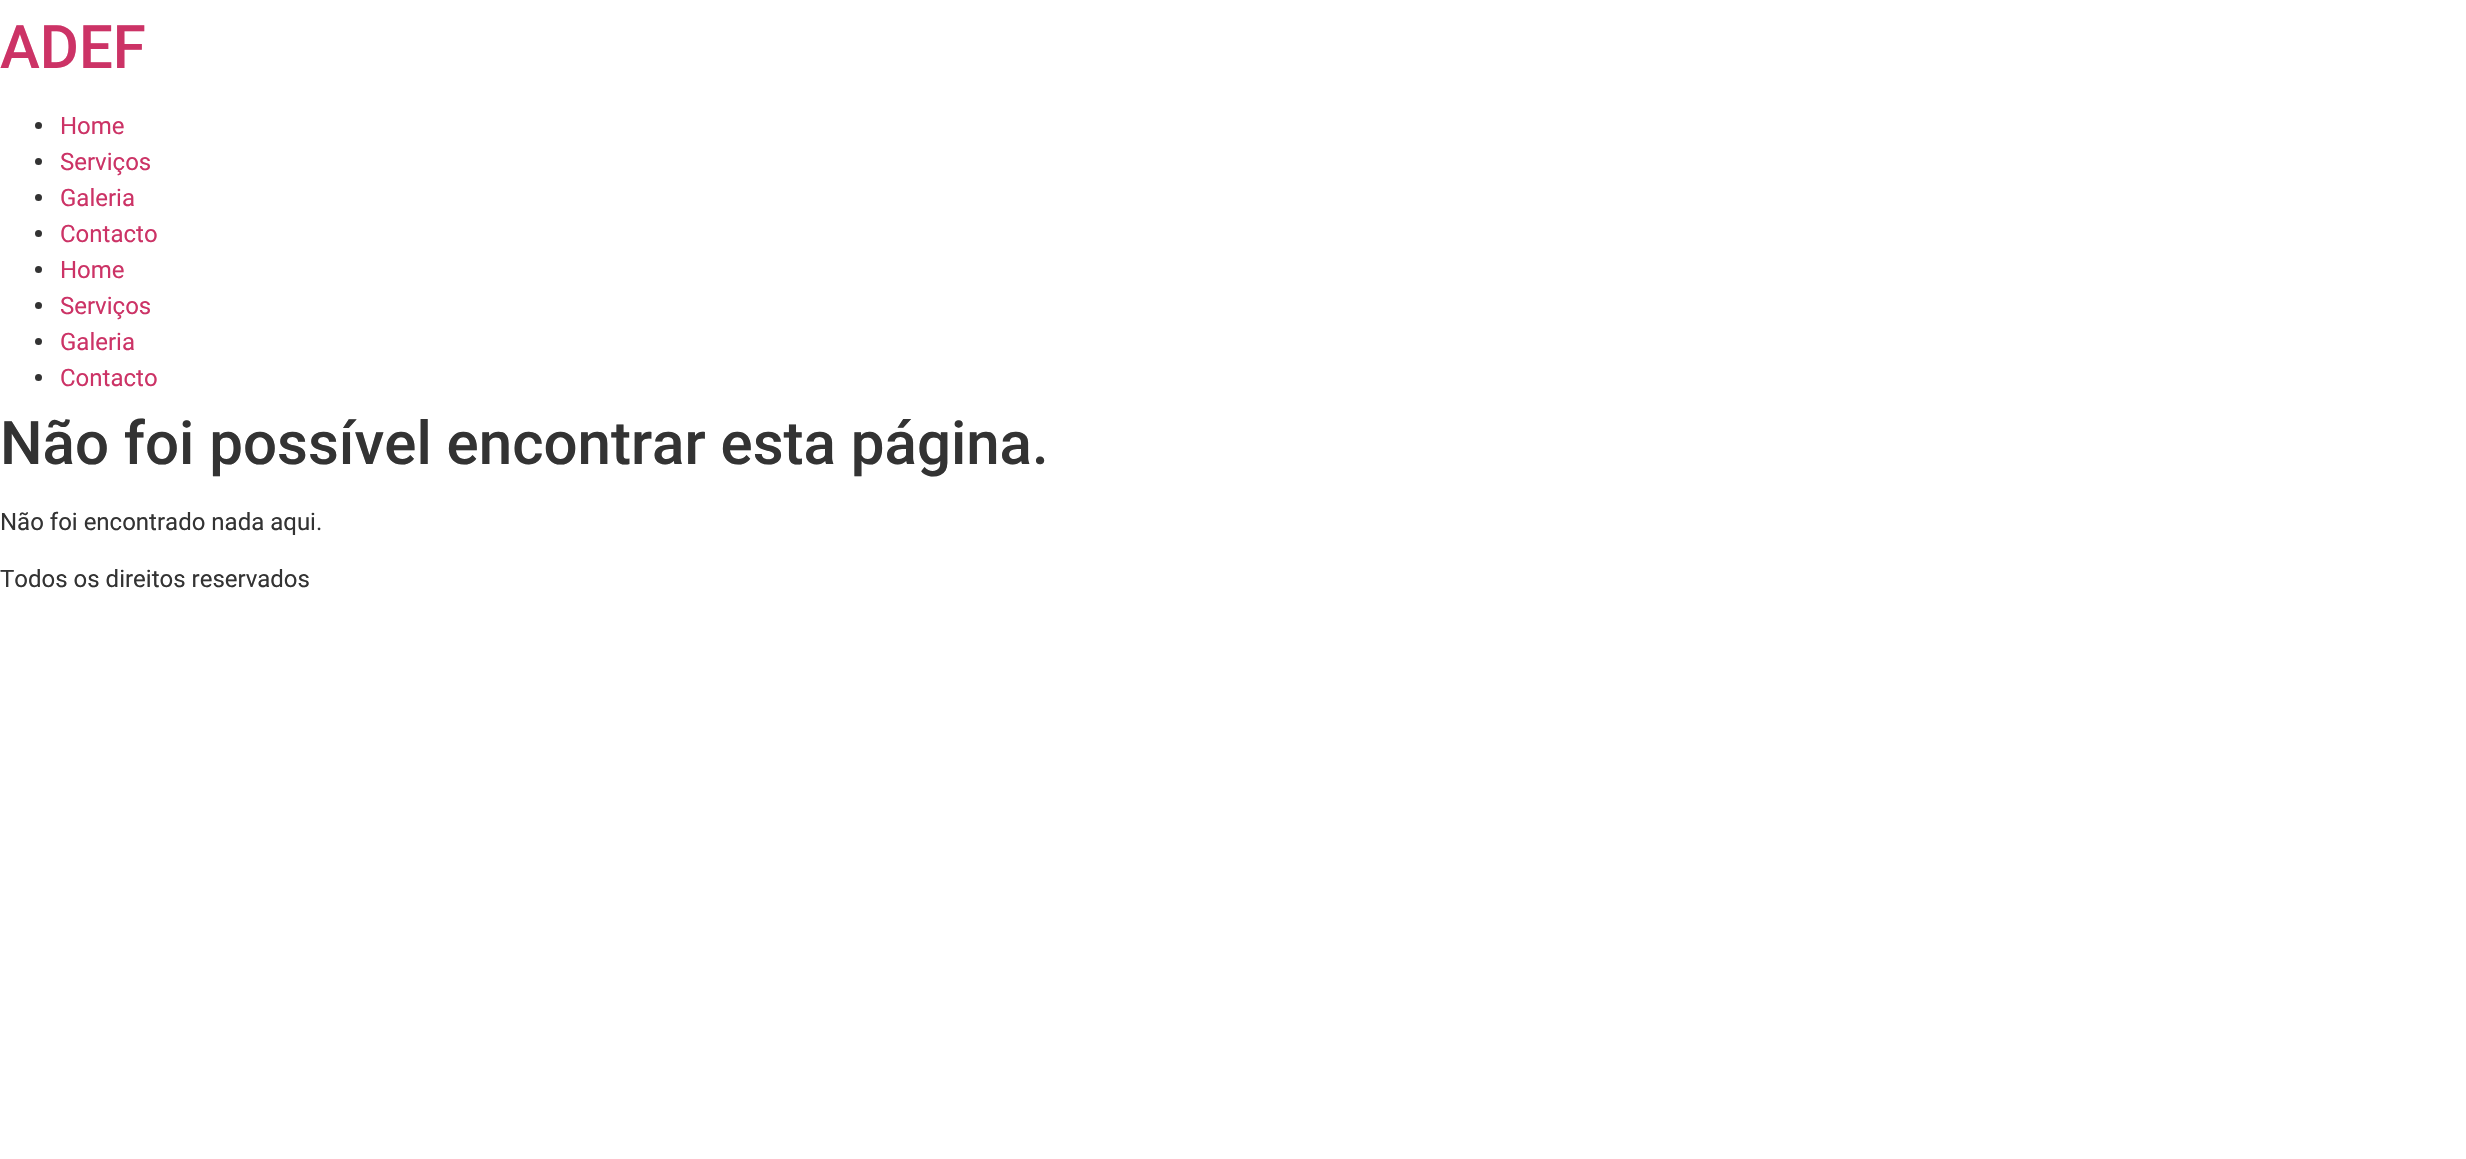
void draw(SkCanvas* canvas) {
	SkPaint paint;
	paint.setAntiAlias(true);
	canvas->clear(0xffffffff);
	SkFont f1(fontMgr->matchFamilyStyle("Roboto", SkFontStyle(500, SkFontStyle::kNormal_Width, SkFontStyle::kUpright_Slant)), 60);
	f1.setSubpixel(true);
	paint.setColor(0xffcc3366);
	canvas->drawString("ADEF", 0, 68, f1, paint);
	paint.setColor(0xff333333);
	canvas->drawCircle(38.5, 125.5, 3.5, paint);
	SkFont f2(fontMgr->matchFamilyStyle("Roboto", SkFontStyle::Normal()), 24);
	f2.setSubpixel(true);
	paint.setColor(0xffcc3366);
	canvas->drawString("Home", 60, 134, f2, paint);
	paint.setColor(0xff333333);
	canvas->drawCircle(38.5, 161.5, 3.5, paint);
	paint.setColor(0xffcc3366);
	canvas->drawString("Serviços", 60, 170, f2, paint);
	paint.setColor(0xff333333);
	canvas->drawCircle(38.5, 197.5, 3.5, paint);
	paint.setColor(0xffcc3366);
	canvas->drawString("Galeria", 60, 206, f2, paint);
	paint.setColor(0xff333333);
	canvas->drawCircle(38.5, 233.5, 3.5, paint);
	paint.setColor(0xffcc3366);
	canvas->drawString("Contacto", 60, 242, f2, paint);
	paint.setColor(0xff333333);
	canvas->drawCircle(38.5, 269.5, 3.5, paint);
	paint.setColor(0xffcc3366);
	canvas->drawString("Home", 60, 278, f2, paint);
	paint.setColor(0xff333333);
	canvas->drawCircle(38.5, 305.5, 3.5, paint);
	paint.setColor(0xffcc3366);
	canvas->drawString("Serviços", 60, 314, f2, paint);
	paint.setColor(0xff333333);
	canvas->drawCircle(38.5, 341.5, 3.5, paint);
	paint.setColor(0xffcc3366);
	canvas->drawString("Galeria", 60, 350, f2, paint);
	paint.setColor(0xff333333);
	canvas->drawCircle(38.5, 377.5, 3.5, paint);
	paint.setColor(0xffcc3366);
	canvas->drawString("Contacto", 60, 386, f2, paint);
	paint.setColor(0xff333333);
	canvas->drawString("Não foi possível encontrar esta página.", 0, 464, f1, paint);
	canvas->drawString("Não foi encontrado nada aqui.", 0, 530, f2, paint);
	canvas->drawString("Todos os direitos reservados", 0, 587, f2, paint);
}
